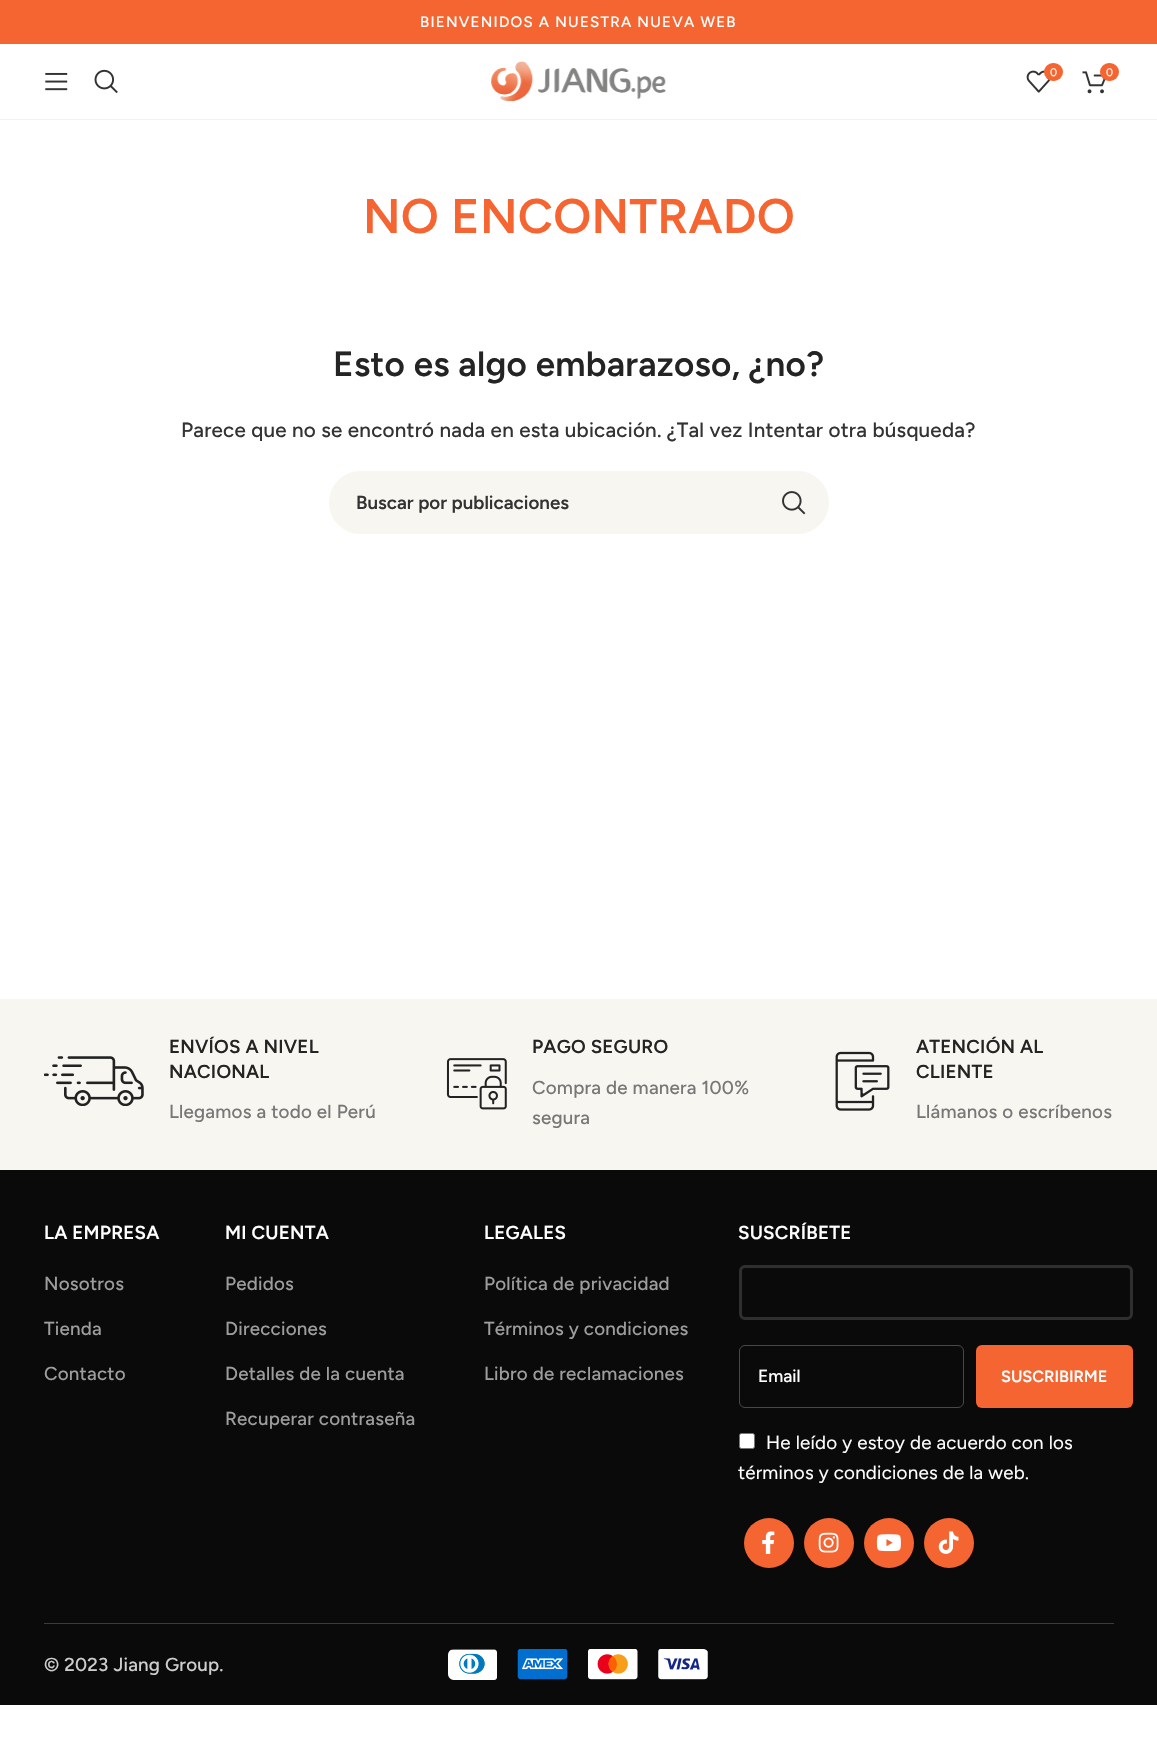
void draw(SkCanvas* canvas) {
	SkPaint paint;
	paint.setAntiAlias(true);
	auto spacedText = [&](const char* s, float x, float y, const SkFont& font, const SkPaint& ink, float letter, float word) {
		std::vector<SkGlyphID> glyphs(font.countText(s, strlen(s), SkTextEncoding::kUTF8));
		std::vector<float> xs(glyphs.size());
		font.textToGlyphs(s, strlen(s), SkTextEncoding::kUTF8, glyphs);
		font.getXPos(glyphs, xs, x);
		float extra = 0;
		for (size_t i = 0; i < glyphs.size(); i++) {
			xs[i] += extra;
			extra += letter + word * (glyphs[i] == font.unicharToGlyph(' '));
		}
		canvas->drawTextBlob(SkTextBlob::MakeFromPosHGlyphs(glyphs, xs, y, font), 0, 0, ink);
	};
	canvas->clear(0xffffffff);
	paint.setColor(0xfff56531);
	canvas->drawRect(SkRect::MakeXYWH(0, 0, 1157, 44), paint);
	SkFont f1(fontMgr->matchFamilyStyle("Figtree", SkFontStyle(500, SkFontStyle::kNormal_Width, SkFontStyle::kUpright_Slant)), 15);
	f1.setSubpixel(true);
	paint.setColor(0xffffffff);
	spacedText("BIENVENIDOS A NUESTRA NUEVA WEB", 420, 27, f1, paint, 1.25, 0);
	paint.setColor(0xfff2f2f2);
	canvas->drawRect(SkRect::MakeXYWH(0, 119, 1157, 1), paint);
	canvas->drawImageRect(SkImages::DeferredFromEncodedData(SkData::MakeFromFileName("img1.png")), SkRect::MakeXYWH(45, 72, 23, 19), SkSamplingOptions());
	canvas->drawImageRect(SkImages::DeferredFromEncodedData(SkData::MakeFromFileName("img2.png")), SkRect::MakeXYWH(94, 69, 24, 25), SkSamplingOptions());
	canvas->drawImageRect(SkImages::DeferredFromEncodedData(SkData::MakeFromFileName("img3.png")), SkRect::MakeXYWH(491, 61, 175, 40), SkSamplingOptions());
	canvas->drawImageRect(SkImages::DeferredFromEncodedData(SkData::MakeFromFileName("img4.png")), SkRect::MakeXYWH(1026, 70, 25, 23), SkSamplingOptions());
	paint.setColor(0xfff56531);
	canvas->drawRoundRect(SkRect::MakeXYWH(1044, 63, 19, 18), 9, 9, paint);
	SkFont f2(fontMgr->matchFamilyStyle("Figtree", SkFontStyle::Normal()), 11);
	f2.setSubpixel(true);
	paint.setColor(0xffffffff);
	canvas->drawString("0", 1050, 76, f2, paint);
	canvas->drawImageRect(SkImages::DeferredFromEncodedData(SkData::MakeFromFileName("img5.png")), SkRect::MakeXYWH(1082, 71, 24, 23), SkSamplingOptions());
	paint.setColor(0xfff56531);
	canvas->drawRoundRect(SkRect::MakeXYWH(1100, 63, 19, 18), 9, 9, paint);
	paint.setColor(0xffffffff);
	canvas->drawString("0", 1106, 76, f2, paint);
	SkFont f3(fontMgr->matchFamilyStyle("Figtree", SkFontStyle(600, SkFontStyle::kNormal_Width, SkFontStyle::kUpright_Slant)), 48.6);
	f3.setSubpixel(true);
	paint.setColor(0xfff56531);
	spacedText("NO ENCONTRADO", 363, 233, f3, paint, 0.23, 0);
	SkFont f4(fontMgr->matchFamilyStyle("Figtree", SkFontStyle(600, SkFontStyle::kNormal_Width, SkFontStyle::kUpright_Slant)), 35);
	f4.setSubpixel(true);
	paint.setColor(0xff242424);
	spacedText("Esto es algo embarazoso, ¿no?", 333, 376, f4, paint, 0.23, 0);
	SkFont f5(fontMgr->matchFamilyStyle("Figtree", SkFontStyle(500, SkFontStyle::kNormal_Width, SkFontStyle::kUpright_Slant)), 20.6);
	f5.setSubpixel(true);
	paint.setColor(0xff333333);
	spacedText("Parece que no se encontró nada en esta ubicación. ¿Tal vez Intentar otra búsqueda?", 181, 437, f5, paint, 0.23, 0);
	paint.setColor(0xfff8f6f1);
	canvas->drawRoundRect(SkRect::MakeXYWH(330.5, 472.5, 497, 60), 30, 30, paint);
	paint.setStroke(true);
	paint.setStrokeWidth(3);
	canvas->drawRoundRect(SkRect::MakeXYWH(330.5, 472.5, 497, 60), 30, 30, paint);
	SkFont f6(fontMgr->matchFamilyStyle("Figtree", SkFontStyle(600, SkFontStyle::kNormal_Width, SkFontStyle::kUpright_Slant)), 18.75);
	f6.setSubpixel(true);
	paint.setStroke(false);
	paint.setColor(0xff333333);
	canvas->drawString("Buscar por publicaciones", 356, 509, f6, paint);
	canvas->drawImageRect(SkImages::DeferredFromEncodedData(SkData::MakeFromFileName("img6.png")), SkRect::MakeXYWH(782, 491, 24, 24), SkSamplingOptions());
	paint.setColor(0xfff8f6f1);
	canvas->drawRect(SkRect::MakeXYWH(0, 999, 1157, 171), paint);
	canvas->drawImageRect(SkImages::DeferredFromEncodedData(SkData::MakeFromFileName("img7.png")), SkRect::MakeXYWH(44, 1056, 100, 50), SkSamplingOptions());
	paint.setColor(0xff242424);
	spacedText("ENVÍOS A NIVEL", 169, 1053, f6, paint, 0.23, 0);
	spacedText("NACIONAL", 169, 1078, f6, paint, 0.23, 0);
	SkFont f7(fontMgr->matchFamilyStyle("Figtree", SkFontStyle(500, SkFontStyle::kNormal_Width, SkFontStyle::kUpright_Slant)), 18.75);
	f7.setSubpixel(true);
	paint.setColor(0xff777777);
	spacedText("Llegamos a todo el Perú", 169, 1118, f7, paint, 0.23, 0);
	canvas->drawImageRect(SkImages::DeferredFromEncodedData(SkData::MakeFromFileName("img8.png")), SkRect::MakeXYWH(446, 1058, 61, 52), SkSamplingOptions());
	paint.setColor(0xff242424);
	spacedText("PAGO SEGURO", 532, 1053, f6, paint, 0.23, 0);
	paint.setColor(0xff777777);
	spacedText("Compra de manera 100%", 532, 1094, f7, paint, 0.23, 0);
	spacedText("segura", 532, 1124, f7, paint, 0.23, 0);
	canvas->drawImageRect(SkImages::DeferredFromEncodedData(SkData::MakeFromFileName("img9.png")), SkRect::MakeXYWH(835, 1051, 55, 60), SkSamplingOptions());
	paint.setColor(0xff242424);
	spacedText("ATENCIÓN AL", 916, 1053, f6, paint, 0.23, 0);
	spacedText("CLIENTE", 916, 1078, f6, paint, 0.23, 0);
	paint.setColor(0xff777777);
	spacedText("Llámanos o escríbenos", 916, 1118, f7, paint, 0.23, 0);
	paint.setColor(0xff0a0a0a);
	canvas->drawRect(SkRect::MakeXYWH(0, 1170, 1157, 535), paint);
	paint.setColor(0xff3b3b3b);
	canvas->drawRect(SkRect::MakeXYWH(44, 1623, 1070, 1), paint);
	paint.setColor(0xffffffff);
	spacedText("LA EMPRESA", 44, 1239, f6, paint, 0.23, 0);
	paint.setColor(0xff9d9d9d);
	spacedText("Nosotros", 44, 1290, f7, paint, 0.23, 0);
	spacedText("Tienda", 44, 1335, f7, paint, 0.23, 0);
	spacedText("Contacto", 44, 1380, f7, paint, 0.23, 0);
	paint.setColor(0xffffffff);
	spacedText("MI CUENTA", 225, 1239, f6, paint, 0.23, 0);
	paint.setColor(0xff9d9d9d);
	spacedText("Pedidos", 225, 1290, f7, paint, 0.23, 0);
	spacedText("Direcciones", 225, 1335, f7, paint, 0.23, 0);
	spacedText("Detalles de la cuenta", 225, 1380, f7, paint, 0.23, 0);
	spacedText("Recuperar contraseña", 225, 1425, f7, paint, 0.23, 0);
	paint.setColor(0xffffffff);
	spacedText("LEGALES", 484, 1239, f6, paint, 0.23, 0);
	paint.setColor(0xff9d9d9d);
	spacedText("Política de privacidad", 484, 1290, f7, paint, 0.23, 0);
	spacedText("Términos y condiciones", 484, 1335, f7, paint, 0.23, 0);
	spacedText("Libro de reclamaciones", 484, 1380, f7, paint, 0.23, 0);
	paint.setColor(0xffffffff);
	spacedText("SUSCRÍBETE", 738, 1239, f6, paint, 0.23, 0);
	paint.setStroke(true);
	paint.setColor(0xff2f2f2f);
	canvas->drawRoundRect(SkRect::MakeXYWH(740.5, 1266.5, 391, 52), 4.5, 4.5, paint);
	paint.setStrokeWidth(1);
	paint.setColor(0xff484848);
	canvas->drawRoundRect(SkRect::MakeXYWH(739.5, 1345.5, 224, 62), 5.5, 5.5, paint);
	SkFont f8(fontMgr->matchFamilyStyle("Figtree", SkFontStyle(500, SkFontStyle::kNormal_Width, SkFontStyle::kUpright_Slant)), 17.5);
	f8.setSubpixel(true);
	paint.setStroke(false);
	paint.setColor(0xffffffff);
	canvas->drawString("Email", 758, 1382, f8, paint);
	paint.setColor(0xfff56531);
	canvas->drawRoundRect(SkRect::MakeXYWH(976, 1345, 157, 63), 6, 6, paint);
	SkFont f9(fontMgr->matchFamilyStyle("Figtree", SkFontStyle(600, SkFontStyle::kNormal_Width, SkFontStyle::kUpright_Slant)), 16.25);
	f9.setSubpixel(true);
	paint.setColor(0xffffffff);
	canvas->drawString("SUSCRIBIRME", 1001, 1382, f9, paint);
	canvas->drawRoundRect(SkRect::MakeXYWH(739.5, 1433.5, 15, 15), 2, 2, paint);
	paint.setStroke(true);
	paint.setColor(0xff767676);
	canvas->drawRoundRect(SkRect::MakeXYWH(739.5, 1433.5, 15, 15), 2, 2, paint);
	SkFont f10(fontMgr->matchFamilyStyle("Figtree", SkFontStyle::Normal()), 18.75);
	f10.setSubpixel(true);
	paint.setStroke(false);
	paint.setColor(0xffffffff);
	spacedText("He leído y estoy de acuerdo con los", 766, 1449, f10, paint, 0.23, 0);
	spacedText("términos y condiciones de la web.", 738, 1479, f10, paint, 0.23, 0);
	paint.setColor(0xfff56531);
	canvas->drawCircle(769, 1543, 25, paint);
	canvas->drawImageRect(SkImages::DeferredFromEncodedData(SkData::MakeFromFileName("img10.png")), SkRect::MakeXYWH(762, 1531, 13, 23), SkSamplingOptions());
	canvas->drawCircle(829, 1543, 25, paint);
	canvas->drawImageRect(SkImages::DeferredFromEncodedData(SkData::MakeFromFileName("img11.png")), SkRect::MakeXYWH(818, 1532, 21, 21), SkSamplingOptions());
	canvas->drawCircle(889, 1543, 25, paint);
	canvas->drawImageRect(SkImages::DeferredFromEncodedData(SkData::MakeFromFileName("img12.png")), SkRect::MakeXYWH(876, 1534, 25, 18), SkSamplingOptions());
	canvas->drawCircle(949, 1543, 25, paint);
	canvas->drawImageRect(SkImages::DeferredFromEncodedData(SkData::MakeFromFileName("img13.png")), SkRect::MakeXYWH(938, 1531, 21, 23), SkSamplingOptions());
	paint.setColor(0xffcecece);
	spacedText("© 2023 Jiang Group.", 44, 1671, f7, paint, 0.23, 0);
	canvas->drawImageRect(SkImages::DeferredFromEncodedData(SkData::MakeFromFileName("img14.png")), SkRect::MakeXYWH(448, 1649, 260, 31), SkSamplingOptions());
}
